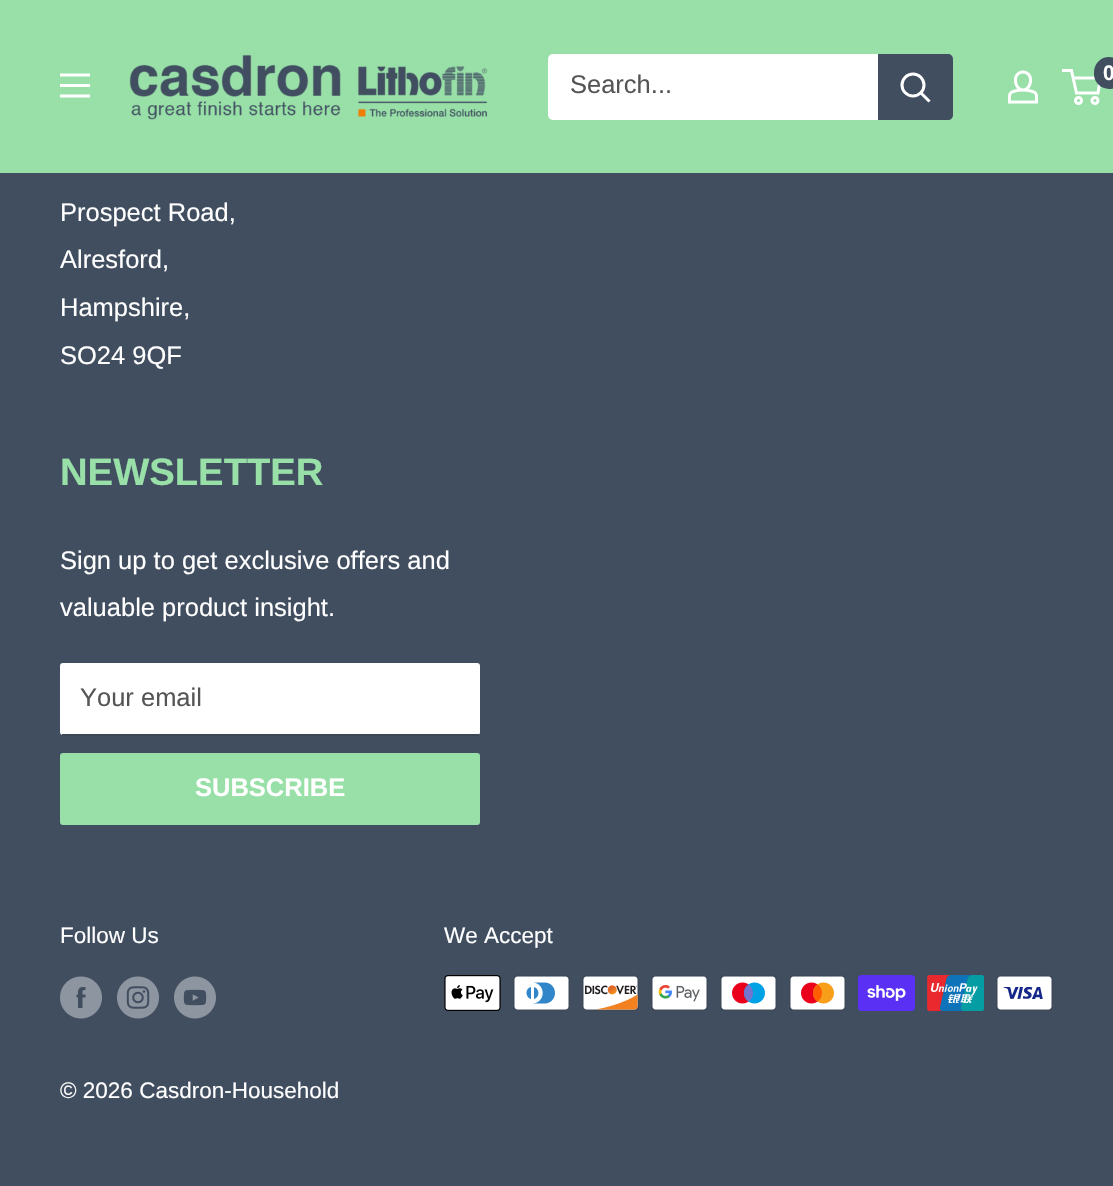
void draw(SkCanvas* canvas) {
	SkPaint paint;
	paint.setAntiAlias(true);
	auto svgPath = [&](const char* data, bool evenOdd = false) {
		SkPath result = *SkParsePath::FromSVGString(data);
		if (evenOdd) result.setFillType(SkPathFillType::kEvenOdd);
		return result;
	};
	canvas->clear(0xff414e60);
	paint.setColor(0xff98e0a8);
	canvas->drawRect(SkRect::MakeXYWH(0, 0, 1113, 173), paint);
	canvas->drawImageRect(SkImages::DeferredFromEncodedData(SkData::MakeFromFileName("img1.png")), SkRect::MakeXYWH(60, 73, 30, 25), SkSamplingOptions());
	canvas->drawImageRect(SkImages::DeferredFromEncodedData(SkData::MakeFromFileName("img2.png")), SkRect::MakeXYWH(129, 54, 359, 66), SkSamplingOptions());
	paint.setColor(0xffffffff);
	canvas->drawRoundRect(SkRect::MakeXYWH(548, 54, 405, 66), 5, 5, paint);
	SkFont f1(fontMgr->matchFamilyStyle("Liberation Sans", SkFontStyle::Normal()), 25.5);
	f1.setSubpixel(true);
	paint.setColor(0xff555555);
	canvas->drawString("Search...", 570, 93, f1, paint);
	paint.setColor(0xff414e60);
	canvas->drawPath(svgPath("M878 54H948C951 54 953 56 953 59V115C953 118 951 120 948 120H878Z"), paint);
	paint.setStroke(true);
	paint.setStrokeWidth(3);
	paint.setStrokeCap(SkPaint::kSquare_Cap);
	paint.setColor(0xffffffff);
	canvas->drawPath(svgPath("M928.5 100.5L921 93"), paint);
	paint.setStrokeCap(SkPaint::kButt_Cap);
	canvas->drawCircle(913, 85, 11, paint);
	canvas->drawImageRect(SkImages::DeferredFromEncodedData(SkData::MakeFromFileName("img3.png")), SkRect::MakeXYWH(1008, 70, 30, 34), SkSamplingOptions());
	canvas->drawCircle(1078.5, 100.5, 3, paint);
	canvas->drawCircle(1095, 100.5, 3, paint);
	canvas->drawPath(svgPath("M1073 78H1100.5L1098 93H1076.5L1071.5 70.5H1062"), paint);
	paint.setStroke(false);
	paint.setColor(0xff414e60);
	canvas->drawRoundRect(SkRect::MakeXYWH(1094, 57, 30, 32), 15, 15, paint);
	SkFont f2(fontMgr->matchFamilyStyle("Liberation Sans", SkFontStyle::Bold()), 21);
	f2.setSubpixel(true);
	paint.setColor(0xffffffff);
	canvas->drawString("0", 1103, 80, f2, paint);
	canvas->drawString("Prospect Road,", 60, 221, f1, paint);
	canvas->drawString("Alresford,", 60, 268, f1, paint);
	canvas->drawString("Hampshire,", 60, 316, f1, paint);
	canvas->drawString("SO24 9QF", 60, 364, f1, paint);
	SkFont f3(fontMgr->matchFamilyStyle("Liberation Sans", SkFontStyle::Bold()), 38.25);
	f3.setSubpixel(true);
	paint.setColor(0xff98e0a8);
	canvas->drawString("NEWSLETTER", 60, 485, f3, paint);
	paint.setColor(0xffffffff);
	canvas->drawString("Sign up to get exclusive offers and", 60, 569, f1, paint);
	canvas->drawString("valuable product insight.", 60, 616, f1, paint);
	canvas->drawRoundRect(SkRect::MakeXYWH(60, 663, 420, 72), 3, 3, paint);
	paint.setColor(0xff3c4654);
	canvas->drawRect(SkRect::MakeXYWH(62, 734, 417, 2), paint);
	paint.setColor(0xff555555);
	canvas->drawString("Your email", 80, 706, f1, paint);
	paint.setColor(0xff98e0a8);
	canvas->drawRoundRect(SkRect::MakeXYWH(60, 753, 420, 72), 3, 3, paint);
	SkFont f4(fontMgr->matchFamilyStyle("Liberation Sans", SkFontStyle::Bold()), 25.5);
	f4.setSubpixel(true);
	paint.setColor(0xffffffff);
	canvas->drawString("SUBSCRIBE", 195, 796, f4, paint);
	SkFont f5(fontMgr->matchFamilyStyle("Liberation Sans", SkFontStyle::Normal()), 22.5);
	f5.setSubpixel(true);
	canvas->drawString("Follow Us", 60, 943, f5, paint);
	canvas->drawImageRect(SkImages::DeferredFromEncodedData(SkData::MakeFromFileName("img4.png")), SkRect::MakeXYWH(60, 976, 42, 43), SkSamplingOptions());
	canvas->drawImageRect(SkImages::DeferredFromEncodedData(SkData::MakeFromFileName("img5.png")), SkRect::MakeXYWH(117, 976, 42, 43), SkSamplingOptions());
	canvas->drawImageRect(SkImages::DeferredFromEncodedData(SkData::MakeFromFileName("img6.png")), SkRect::MakeXYWH(174, 976, 42, 43), SkSamplingOptions());
	canvas->drawString("We Accept", 444, 943, f5, paint);
	canvas->drawImageRect(SkImages::DeferredFromEncodedData(SkData::MakeFromFileName("img7.png")), SkRect::MakeXYWH(444, 975, 57, 36), SkSamplingOptions());
	canvas->drawImageRect(SkImages::DeferredFromEncodedData(SkData::MakeFromFileName("img8.png")), SkRect::MakeXYWH(513, 975, 57, 36), SkSamplingOptions());
	canvas->drawImageRect(SkImages::DeferredFromEncodedData(SkData::MakeFromFileName("img9.png")), SkRect::MakeXYWH(582, 975, 57, 36), SkSamplingOptions());
	canvas->drawImageRect(SkImages::DeferredFromEncodedData(SkData::MakeFromFileName("img10.png")), SkRect::MakeXYWH(651, 975, 57, 36), SkSamplingOptions());
	canvas->drawImageRect(SkImages::DeferredFromEncodedData(SkData::MakeFromFileName("img11.png")), SkRect::MakeXYWH(720, 975, 57, 36), SkSamplingOptions());
	canvas->drawImageRect(SkImages::DeferredFromEncodedData(SkData::MakeFromFileName("img12.png")), SkRect::MakeXYWH(789, 975, 57, 36), SkSamplingOptions());
	canvas->drawImageRect(SkImages::DeferredFromEncodedData(SkData::MakeFromFileName("img13.png")), SkRect::MakeXYWH(858, 975, 57, 36), SkSamplingOptions());
	canvas->drawImageRect(SkImages::DeferredFromEncodedData(SkData::MakeFromFileName("img14.png")), SkRect::MakeXYWH(927, 975, 57, 36), SkSamplingOptions());
	canvas->drawImageRect(SkImages::DeferredFromEncodedData(SkData::MakeFromFileName("img15.png")), SkRect::MakeXYWH(996, 975, 57, 36), SkSamplingOptions());
	canvas->drawString("© 2026 Casdron-Household", 60, 1098, f5, paint);
}
